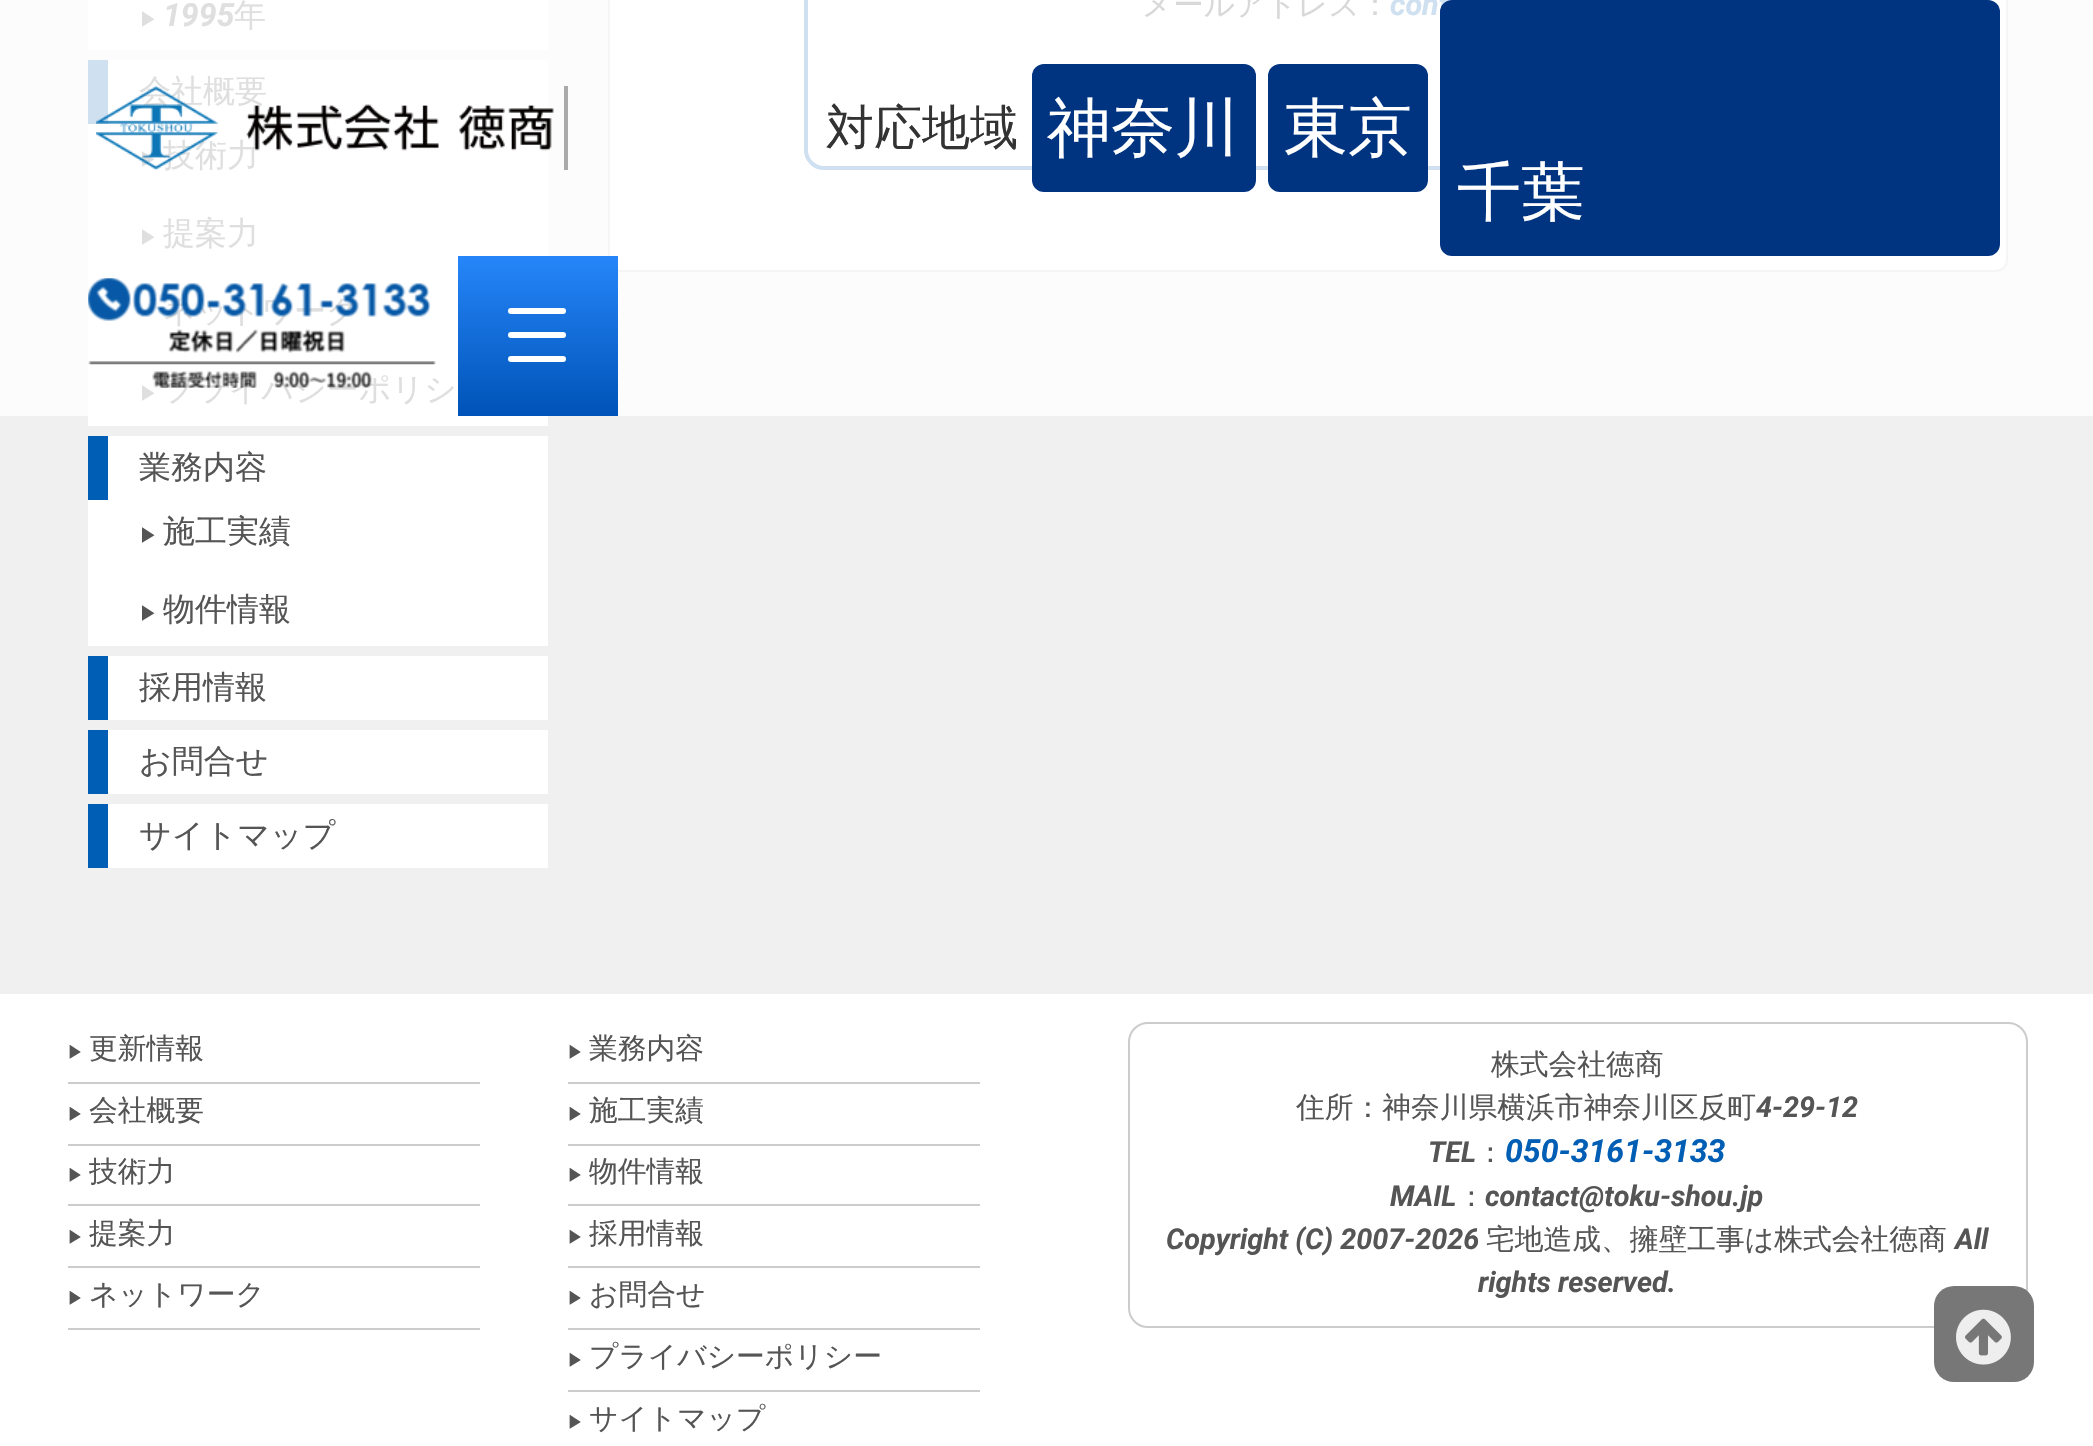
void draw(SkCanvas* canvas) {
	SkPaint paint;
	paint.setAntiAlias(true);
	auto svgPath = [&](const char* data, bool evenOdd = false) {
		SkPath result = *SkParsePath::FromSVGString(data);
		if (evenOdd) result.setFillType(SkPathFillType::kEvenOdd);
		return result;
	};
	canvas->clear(0xffffffff);
	paint.setColor(0xfff0f0f0);
	canvas->drawRect(SkRect::MakeXYWH(0, 416, 2093, 578), paint);
	paint.setColor(0xfffcfcfc);
	canvas->drawRect(SkRect::MakeXYWH(0, 0, 2093, 416), paint);
	paint.setColor(0xffffffff);
	canvas->drawRect(SkRect::MakeXYWH(88, 0, 460, 50), paint);
	SkFont f1(fontMgr->matchFamilyStyle("WenQuanYi Zen Hei", SkFontStyle(500, SkFontStyle::kNormal_Width, SkFontStyle::kUpright_Slant)), 19);
	f1.setSubpixel(true);
	paint.setColor(0xffdfdfdf);
	canvas->drawString("▶", 139, 26, f1, paint);
	SkFont f2(fontMgr->matchFamilyStyle("Roboto", SkFontStyle::BoldItalic()), 32);
	f2.setSubpixel(true);
	canvas->drawString("1995", 163, 26, f2, paint);
	SkFont f3(fontMgr->matchFamilyStyle("WenQuanYi Zen Hei", SkFontStyle(500, SkFontStyle::kNormal_Width, SkFontStyle::kUpright_Slant)), 32);
	f3.setSubpixel(true);
	canvas->drawString("年", 234, 26, f3, paint);
	paint.setColor(0xffffffff);
	canvas->drawRect(SkRect::MakeXYWH(88, 60, 460, 366), paint);
	paint.setColor(0xffcfe0f1);
	canvas->drawRect(SkRect::MakeXYWH(88, 60, 20, 64), paint);
	paint.setColor(0xffdfdfdf);
	canvas->drawString("会社概要", 139, 102, f3, paint);
	canvas->drawString("▶", 139, 166, f1, paint);
	canvas->drawString("技術力", 163, 166, f3, paint);
	canvas->drawString("▶", 139, 244, f1, paint);
	canvas->drawString("提案力", 163, 244, f3, paint);
	canvas->drawString("ネットワーク", 163, 322, f3, paint);
	canvas->drawString("▶", 139, 400, f1, paint);
	canvas->drawString("プライバシーポリシ", 163, 400, f3, paint);
	paint.setColor(0xffffffff);
	canvas->drawRect(SkRect::MakeXYWH(88, 436, 460, 210), paint);
	paint.setColor(0xff005eb4);
	canvas->drawRect(SkRect::MakeXYWH(88, 436, 20, 64), paint);
	paint.setColor(0xff555555);
	canvas->drawString("業務内容", 139, 478, f3, paint);
	canvas->drawString("▶", 139, 542, f1, paint);
	canvas->drawString("施工実績", 163, 542, f3, paint);
	canvas->drawString("▶", 139, 620, f1, paint);
	canvas->drawString("物件情報", 163, 620, f3, paint);
	paint.setColor(0xffffffff);
	canvas->drawRect(SkRect::MakeXYWH(108, 656, 440, 64), paint);
	paint.setColor(0xff005eb4);
	canvas->drawRect(SkRect::MakeXYWH(88, 656, 20, 64), paint);
	paint.setColor(0xff555555);
	canvas->drawString("採用情報", 139, 698, f3, paint);
	paint.setColor(0xffffffff);
	canvas->drawRect(SkRect::MakeXYWH(108, 730, 440, 64), paint);
	paint.setColor(0xff005eb4);
	canvas->drawRect(SkRect::MakeXYWH(88, 730, 20, 64), paint);
	paint.setColor(0xff555555);
	canvas->drawString("お問合せ", 139, 772, f3, paint);
	paint.setColor(0xffffffff);
	canvas->drawRect(SkRect::MakeXYWH(108, 804, 440, 64), paint);
	paint.setColor(0xff005eb4);
	canvas->drawRect(SkRect::MakeXYWH(88, 804, 20, 64), paint);
	paint.setColor(0xff555555);
	canvas->drawString("サイトマップ", 139, 846, f3, paint);
	paint.setColor(0xffffffff);
	canvas->drawRoundRect(SkRect::MakeXYWH(609, -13, 1398, 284), 11, 11, paint);
	paint.setStroke(true);
	paint.setStrokeWidth(2);
	paint.setColor(0xfff5f5f5);
	canvas->drawRoundRect(SkRect::MakeXYWH(609, -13, 1398, 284), 11, 11, paint);
	paint.setStrokeWidth(4);
	paint.setColor(0xffcfe0f1);
	canvas->drawPath(svgPath("M806-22H1808V150C1808 160 1800 168 1790 168H824C814 168 806 160 806 150Z"), paint);
	SkFont f4(fontMgr->matchFamilyStyle("WenQuanYi Zen Hei", SkFontStyle(500, SkFontStyle::kNormal_Width, SkFontStyle::kUpright_Slant)), 30.5);
	f4.setSubpixel(true);
	paint.setStroke(false);
	paint.setColor(0xffd8d8d8);
	canvas->drawString("メールアドレス：", 1142, 15, f4, paint);
	SkFont f5(fontMgr->matchFamilyStyle("Roboto", SkFontStyle::BoldItalic()), 30.5);
	f5.setSubpixel(true);
	paint.setColor(0xffcfe0f1);
	canvas->drawString("cont", 1390, 15, f5, paint);
	paint.setColor(0xffaaaaaa);
	canvas->drawRect(SkRect::MakeXYWH(564, 86, 4, 84), paint);
	canvas->drawImageRect(SkImages::DeferredFromEncodedData(SkData::MakeFromFileName("img1.png")), SkRect::MakeXYWH(96, 86, 458, 84), SkSamplingOptions());
	SkFont f6(fontMgr->matchFamilyStyle("WenQuanYi Zen Hei", SkFontStyle(500, SkFontStyle::kNormal_Width, SkFontStyle::kUpright_Slant)), 48);
	f6.setSubpixel(true);
	paint.setColor(0xff333333);
	canvas->drawString("対応地域", 826, 144, f6, paint);
	paint.setColor(0xff003380);
	canvas->drawRoundRect(SkRect::MakeXYWH(1032, 64, 224, 128), 12, 12, paint);
	SkFont f7(fontMgr->matchFamilyStyle("WenQuanYi Zen Hei", SkFontStyle(500, SkFontStyle::kNormal_Width, SkFontStyle::kUpright_Slant)), 64);
	f7.setSubpixel(true);
	paint.setColor(0xffffffff);
	canvas->drawString("神奈川", 1047, 150, f7, paint);
	paint.setColor(0xff003380);
	canvas->drawRoundRect(SkRect::MakeXYWH(1268, 64, 160, 128), 12, 12, paint);
	paint.setColor(0xffffffff);
	canvas->drawString("東京", 1284, 150, f7, paint);
	paint.setColor(0xff003380);
	canvas->drawRoundRect(SkRect::MakeXYWH(1440, 0, 560, 256), 12, 12, paint);
	paint.setColor(0xffffffff);
	canvas->drawString("千葉", 1457, 214, f7, paint);
	canvas->drawImageRect(SkImages::DeferredFromEncodedData(SkData::MakeFromFileName("img2.png")), SkRect::MakeXYWH(88, 278, 348, 110), SkSamplingOptions());
	{
		const SkColor colors[] = {0xff0053b7, 0xff2686f9};
		const float stops[] = {0, 1};
		const SkPoint ends[] = {{538, 416}, {538, 256}};
		paint.setShader(SkGradientShader::MakeLinear(ends, colors, stops, 2, SkTileMode::kClamp));
		paint.setAlpha(255);
	}
	canvas->drawRect(SkRect::MakeXYWH(458, 256, 160, 160), paint);
	paint.setShader(nullptr);
	paint.setColor(0xffffffff);
	canvas->drawRoundRect(SkRect::MakeXYWH(508, 308, 58, 6), 3, 3, paint);
	canvas->drawRoundRect(SkRect::MakeXYWH(508, 332, 58, 6), 3, 3, paint);
	canvas->drawRoundRect(SkRect::MakeXYWH(508, 356, 58, 6), 3, 3, paint);
	paint.setColor(0xffcccccc);
	canvas->drawRect(SkRect::MakeXYWH(68, 1082, 412, 2), paint);
	SkFont f8(fontMgr->matchFamilyStyle("WenQuanYi Zen Hei", SkFontStyle(500, SkFontStyle::kNormal_Width, SkFontStyle::kUpright_Slant)), 17);
	f8.setSubpixel(true);
	paint.setColor(0xff555555);
	canvas->drawString("▶", 67, 1058, f8, paint);
	SkFont f9(fontMgr->matchFamilyStyle("WenQuanYi Zen Hei", SkFontStyle(500, SkFontStyle::kNormal_Width, SkFontStyle::kUpright_Slant)), 28.75);
	f9.setSubpixel(true);
	canvas->drawString("更新情報", 89, 1058, f9, paint);
	paint.setColor(0xffcccccc);
	canvas->drawRect(SkRect::MakeXYWH(68, 1144, 412, 2), paint);
	paint.setColor(0xff555555);
	canvas->drawString("▶", 67, 1120, f8, paint);
	canvas->drawString("会社概要", 89, 1120, f9, paint);
	paint.setColor(0xffcccccc);
	canvas->drawRect(SkRect::MakeXYWH(68, 1204, 412, 2), paint);
	paint.setColor(0xff555555);
	canvas->drawString("▶", 67, 1181, f8, paint);
	canvas->drawString("技術力", 89, 1181, f9, paint);
	paint.setColor(0xffcccccc);
	canvas->drawRect(SkRect::MakeXYWH(68, 1266, 412, 2), paint);
	paint.setColor(0xff555555);
	canvas->drawString("▶", 67, 1243, f8, paint);
	canvas->drawString("提案力", 89, 1243, f9, paint);
	paint.setColor(0xffcccccc);
	canvas->drawRect(SkRect::MakeXYWH(68, 1328, 412, 2), paint);
	paint.setColor(0xff555555);
	canvas->drawString("▶", 67, 1304, f8, paint);
	canvas->drawString("ネットワーク", 89, 1304, f9, paint);
	paint.setColor(0xffcccccc);
	canvas->drawRect(SkRect::MakeXYWH(568, 1082, 412, 2), paint);
	paint.setColor(0xff555555);
	canvas->drawString("▶", 567, 1058, f8, paint);
	canvas->drawString("業務内容", 589, 1058, f9, paint);
	paint.setColor(0xffcccccc);
	canvas->drawRect(SkRect::MakeXYWH(568, 1144, 412, 2), paint);
	paint.setColor(0xff555555);
	canvas->drawString("▶", 567, 1120, f8, paint);
	canvas->drawString("施工実績", 589, 1120, f9, paint);
	paint.setColor(0xffcccccc);
	canvas->drawRect(SkRect::MakeXYWH(568, 1204, 412, 2), paint);
	paint.setColor(0xff555555);
	canvas->drawString("▶", 567, 1181, f8, paint);
	canvas->drawString("物件情報", 589, 1181, f9, paint);
	paint.setColor(0xffcccccc);
	canvas->drawRect(SkRect::MakeXYWH(568, 1266, 412, 2), paint);
	paint.setColor(0xff555555);
	canvas->drawString("▶", 567, 1243, f8, paint);
	canvas->drawString("採用情報", 589, 1243, f9, paint);
	paint.setColor(0xffcccccc);
	canvas->drawRect(SkRect::MakeXYWH(568, 1328, 412, 2), paint);
	paint.setColor(0xff555555);
	canvas->drawString("▶", 567, 1304, f8, paint);
	canvas->drawString("お問合せ", 589, 1304, f9, paint);
	paint.setColor(0xffcccccc);
	canvas->drawRect(SkRect::MakeXYWH(568, 1390, 412, 2), paint);
	paint.setColor(0xff555555);
	canvas->drawString("▶", 567, 1366, f8, paint);
	canvas->drawString("プライバシーポリシー", 589, 1366, f9, paint);
	canvas->drawString("▶", 567, 1428, f8, paint);
	canvas->drawString("サイトマップ", 589, 1428, f9, paint);
	paint.setStroke(true);
	paint.setStrokeWidth(2);
	paint.setColor(0xffcccccc);
	canvas->drawRoundRect(SkRect::MakeXYWH(1129, 1023, 898, 304), 19, 19, paint);
	paint.setStroke(false);
	paint.setColor(0xff555555);
	canvas->drawString("株式会社徳商", 1491, 1074, f9, paint);
	canvas->drawString("住所：神奈川県横浜市神奈川区反町", 1296, 1117, f9, paint);
	SkFont f10(fontMgr->matchFamilyStyle("Roboto", SkFontStyle::BoldItalic()), 28.75);
	f10.setSubpixel(true);
	canvas->drawString("4-29-12", 1756, 1117, f10, paint);
	canvas->drawString("TEL", 1428, 1162, f10, paint);
	canvas->drawString("：", 1476, 1162, f9, paint);
	paint.setColor(0xff005eb4);
	canvas->drawString("050-3161-3133", 1505, 1162, f2, paint);
	paint.setColor(0xff555555);
	canvas->drawString("MAIL", 1390, 1206, f10, paint);
	canvas->drawString("：", 1457, 1206, f9, paint);
	canvas->drawString("contact@toku-shou.jp", 1485, 1206, f10, paint);
	canvas->drawString("Copyright (C) 2007-2026", 1166, 1249, f10, paint);
	canvas->drawString("宅地造成、擁壁工事は株式会社徳商", 1486, 1249, f9, paint);
	canvas->drawString("All", 1955, 1249, f10, paint);
	canvas->drawString("rights reserved.", 1478, 1292, f10, paint);
	paint.setColor(0xff777777);
	canvas->drawRoundRect(SkRect::MakeXYWH(1934, 1286, 100, 96), 20, 20, paint);
	canvas->drawImageRect(SkImages::DeferredFromEncodedData(SkData::MakeFromFileName("img3.png")), SkRect::MakeXYWH(1956, 1309, 55, 56), SkSamplingOptions());
}
